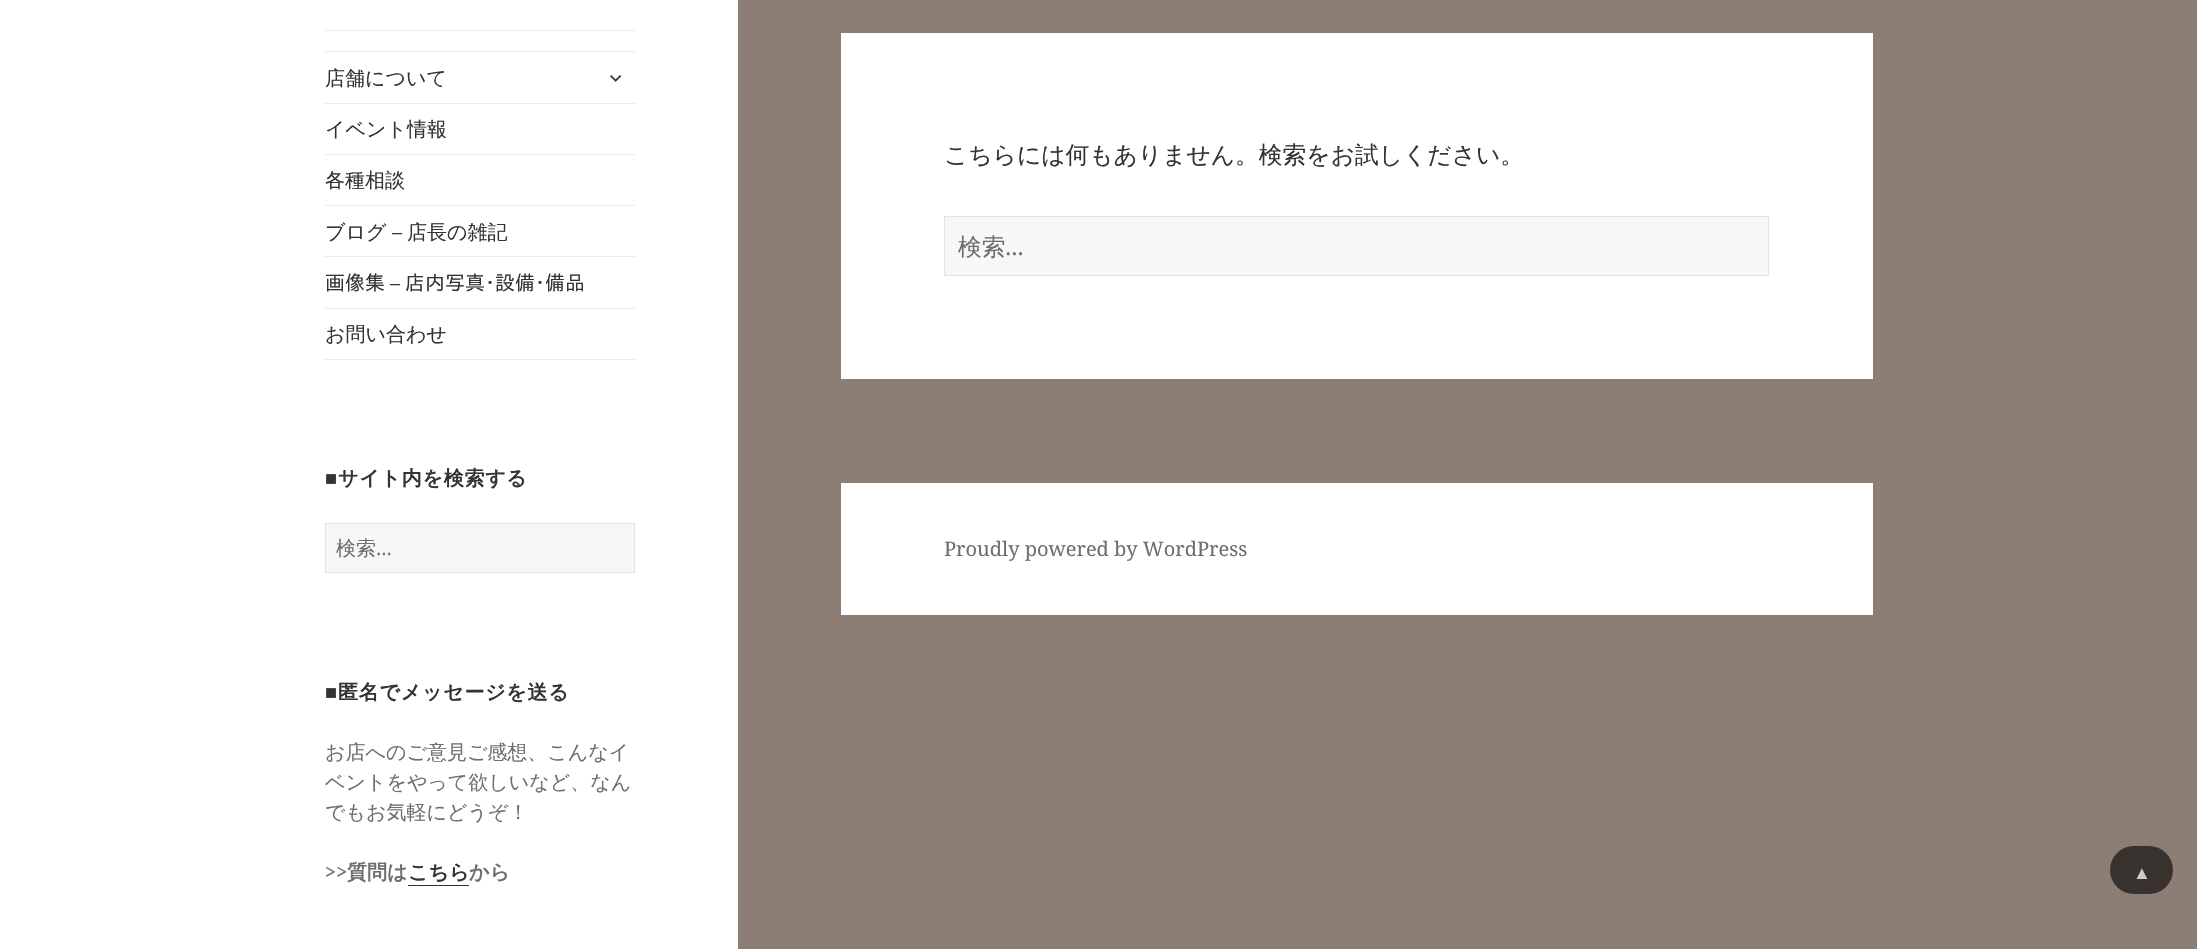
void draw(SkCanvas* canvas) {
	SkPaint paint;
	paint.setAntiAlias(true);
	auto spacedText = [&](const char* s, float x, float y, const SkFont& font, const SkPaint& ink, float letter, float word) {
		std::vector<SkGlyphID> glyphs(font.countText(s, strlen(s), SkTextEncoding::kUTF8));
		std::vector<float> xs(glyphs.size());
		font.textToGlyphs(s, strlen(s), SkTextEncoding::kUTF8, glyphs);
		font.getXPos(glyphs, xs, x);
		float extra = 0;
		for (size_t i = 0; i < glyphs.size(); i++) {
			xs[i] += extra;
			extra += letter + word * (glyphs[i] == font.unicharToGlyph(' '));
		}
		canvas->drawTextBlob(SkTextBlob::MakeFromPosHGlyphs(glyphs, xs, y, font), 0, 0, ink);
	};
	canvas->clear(0xff8c7e74);
	paint.setColor(0xffffffff);
	canvas->drawRect(SkRect::MakeXYWH(0, 0, 738, 949), paint);
	paint.setColor(0xffebebeb);
	canvas->drawRect(SkRect::MakeXYWH(325, 30, 310, 1), paint);
	canvas->drawRect(SkRect::MakeXYWH(325, 359, 310, 1), paint);
	canvas->drawRect(SkRect::MakeXYWH(325, 51, 310, 1), paint);
	SkFont f1(fontMgr->matchFamilyStyle("WenQuanYi Zen Hei", SkFontStyle(500, SkFontStyle::kNormal_Width, SkFontStyle::kUpright_Slant)), 20);
	f1.setSubpixel(true);
	paint.setColor(0xff333333);
	canvas->drawString("店舗について", 325, 85, f1, paint);
	canvas->drawImageRect(SkImages::DeferredFromEncodedData(SkData::MakeFromFileName("img1.png")), SkRect::MakeXYWH(610, 75, 12, 7), SkSamplingOptions());
	paint.setColor(0xffebebeb);
	canvas->drawRect(SkRect::MakeXYWH(325, 103, 310, 1), paint);
	paint.setColor(0xff333333);
	canvas->drawString("イベント情報", 325, 136, f1, paint);
	paint.setColor(0xffebebeb);
	canvas->drawRect(SkRect::MakeXYWH(325, 154, 310, 1), paint);
	paint.setColor(0xff333333);
	canvas->drawString("各種相談", 325, 187, f1, paint);
	paint.setColor(0xffebebeb);
	canvas->drawRect(SkRect::MakeXYWH(325, 205, 310, 1), paint);
	paint.setColor(0xff333333);
	canvas->drawString("ブログ", 325, 239, f1, paint);
	SkFont f2(fontMgr->matchFamilyStyle("Noto Serif", SkFontStyle::Normal()), 20);
	f2.setSubpixel(true);
	canvas->drawString("–", 392, 239, f2, paint);
	canvas->drawString("店長の雑記", 407, 239, f1, paint);
	paint.setColor(0xffebebeb);
	canvas->drawRect(SkRect::MakeXYWH(325, 256, 310, 1), paint);
	SkFont f3(fontMgr->matchFamilyStyle("IPAPGothic", SkFontStyle::Normal()), 20);
	f3.setSubpixel(true);
	paint.setColor(0xff333333);
	canvas->drawString("画像集", 325, 290, f3, paint);
	canvas->drawString("–", 390, 290, f2, paint);
	canvas->drawString("店内写真･設備･備品", 405, 290, f3, paint);
	paint.setColor(0xffebebeb);
	canvas->drawRect(SkRect::MakeXYWH(325, 308, 310, 1), paint);
	paint.setColor(0xff333333);
	canvas->drawString("お問い合わせ", 325, 341, f1, paint);
	SkFont f4(fontMgr->matchFamilyStyle("Liberation Sans", SkFontStyle::Bold()), 20);
	f4.setSubpixel(true);
	spacedText("■", 325, 485, f4, paint, 0.75, 0);
	SkFont f5(fontMgr->matchFamilyStyle("WenQuanYi Zen Hei", SkFontStyle::Bold()), 20);
	f5.setSubpixel(true);
	spacedText("サイト内を検索する", 338, 485, f5, paint, 0.75, 0);
	paint.setColor(0xfff7f7f7);
	canvas->drawRect(SkRect::MakeXYWH(325.5, 523.5, 309, 49), paint);
	paint.setStroke(true);
	paint.setStrokeWidth(1);
	paint.setColor(0xffe3e3e3);
	canvas->drawRect(SkRect::MakeXYWH(325.5, 523.5, 309, 49), paint);
	paint.setStroke(false);
	paint.setColor(0xff6e6e6e);
	canvas->drawString("検索", 336, 555, f1, paint);
	SkFont f6(fontMgr->matchFamilyStyle("Noto Sans", SkFontStyle::Normal()), 20);
	f6.setSubpixel(true);
	canvas->drawString("…", 376, 555, f6, paint);
	paint.setColor(0xff333333);
	spacedText("■", 325, 699, f4, paint, 0.75, 0);
	spacedText("匿名でメッセージを送る", 338, 699, f5, paint, 0.75, 0);
	paint.setColor(0xff6e6e6e);
	canvas->drawString("お店へのご意見ご感想、こんなイ", 325, 759, f1, paint);
	canvas->drawString("ベントをやって欲しいなど、なん", 325, 789, f1, paint);
	canvas->drawString("でもお気軽にどうぞ！", 325, 819, f1, paint);
	SkFont f7(fontMgr->matchFamilyStyle("Noto Serif", SkFontStyle::Bold()), 20);
	f7.setSubpixel(true);
	canvas->drawString(">>", 325, 879, f7, paint);
	canvas->drawString("質問は", 347, 879, f5, paint);
	paint.setColor(0xff333333);
	canvas->drawString("こちら", 408, 879, f5, paint);
	canvas->drawRect(SkRect::MakeXYWH(408, 885, 61, 1), paint);
	paint.setColor(0xff6e6e6e);
	canvas->drawString("から", 469, 879, f5, paint);
	paint.setColor(0xffffffff);
	canvas->drawRect(SkRect::MakeXYWH(841, 33, 1032, 346), paint);
	SkFont f8(fontMgr->matchFamilyStyle("WenQuanYi Zen Hei", SkFontStyle(500, SkFontStyle::kNormal_Width, SkFontStyle::kUpright_Slant)), 23.75);
	f8.setSubpixel(true);
	paint.setColor(0xff333333);
	canvas->drawString("こちらには何もありません。検索をお試しください。", 944, 163, f8, paint);
	paint.setColor(0xfff7f7f7);
	canvas->drawRect(SkRect::MakeXYWH(944.5, 216.5, 824, 59), paint);
	paint.setStroke(true);
	paint.setColor(0xffe3e3e3);
	canvas->drawRect(SkRect::MakeXYWH(944.5, 216.5, 824, 59), paint);
	paint.setStroke(false);
	paint.setColor(0xff6e6e6e);
	canvas->drawString("検索", 958, 255, f8, paint);
	SkFont f9(fontMgr->matchFamilyStyle("Noto Sans", SkFontStyle::Normal()), 23.75);
	f9.setSubpixel(true);
	canvas->drawString("…", 1005, 255, f9, paint);
	paint.setColor(0xffffffff);
	canvas->drawRect(SkRect::MakeXYWH(841, 483, 1032, 132), paint);
	paint.setColor(0xff6e6e6e);
	canvas->drawString("Proudly powered by WordPress", 944, 556, f2, paint);
	paint.setColor(0xff38322e);
	canvas->drawRoundRect(SkRect::MakeXYWH(2110, 846, 63, 48), 24, 24, paint);
	SkFont f10(fontMgr->matchFamilyStyle("Liberation Serif", SkFontStyle::Normal()), 18);
	f10.setSubpixel(true);
	paint.setColor(0xffd1cbc7);
	canvas->drawString("▲", 2133, 879, f10, paint);
}
